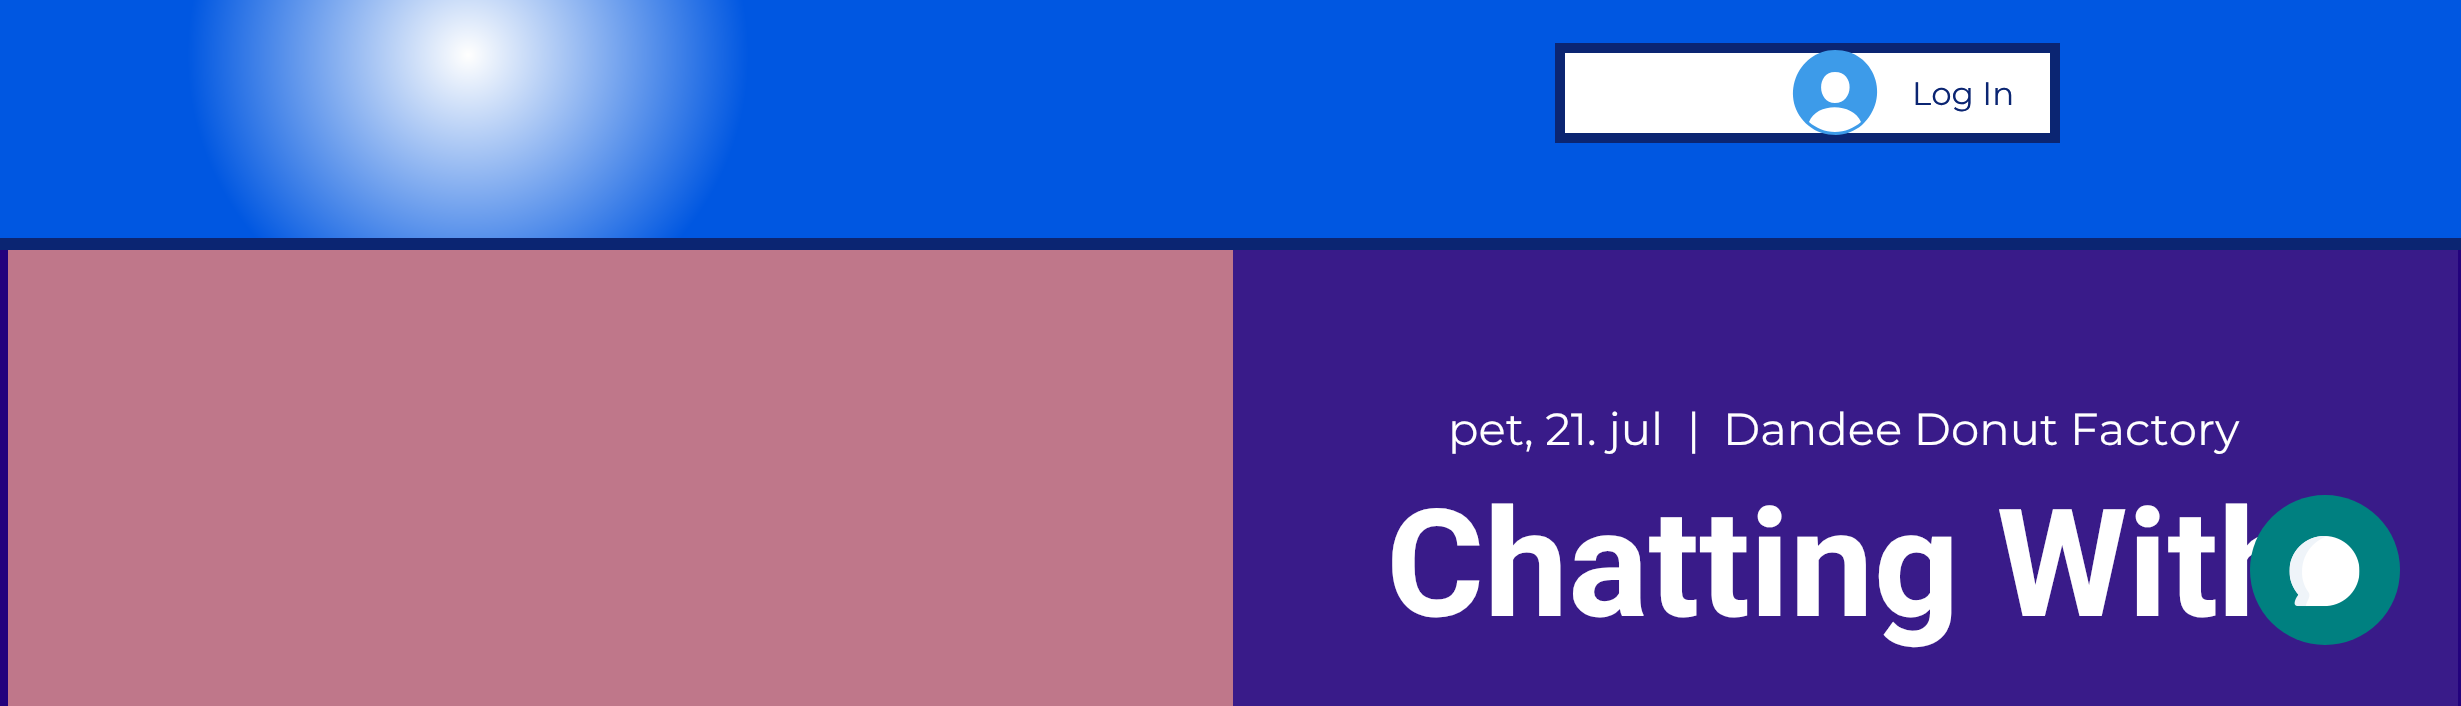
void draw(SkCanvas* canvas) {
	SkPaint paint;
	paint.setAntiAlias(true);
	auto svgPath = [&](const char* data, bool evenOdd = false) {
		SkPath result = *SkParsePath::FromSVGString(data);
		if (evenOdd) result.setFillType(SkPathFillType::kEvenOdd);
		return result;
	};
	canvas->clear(0xff23027d);
	paint.setColor(0xff0b2572);
	canvas->drawRect(SkRect::MakeXYWH(0, 238, 2461, 12), paint);
	{
		const SkColor colors[] = {0xff23027d, 0xff7ba8ef, 0xff0057e1, 0xfffffffe, 0xff0057e1};
		const float stops[] = {0, 0, 0, 0, 0.14};
		paint.setShader(SkGradientShader::MakeRadial({468, 55}, 2003, colors, stops, 5, SkTileMode::kClamp));
		paint.setAlpha(255);
	}
	canvas->drawRect(SkRect::MakeXYWH(0, 0, 2461, 238), paint);
	paint.setShader(nullptr);
	paint.setColor(0xffffffff);
	canvas->drawRect(SkRect::MakeXYWH(1560, 48, 495, 90), paint);
	paint.setStroke(true);
	paint.setStrokeWidth(10);
	paint.setColor(0xff0b2572);
	canvas->drawRect(SkRect::MakeXYWH(1560, 48, 495, 90), paint);
	paint.setStroke(false);
	paint.setColor(0xff3d9be9);
	canvas->drawPath(svgPath("M1835 50C1797 50 1777 100 1809 126C1816 132 1826 135 1836 135C1845 135 1855 131 1862 125C1892 98 1875 50 1835 50ZM1835 72C1816 72 1817 103 1835 103C1854 103 1855 72 1835 72ZM1835 132C1845 132 1854 128 1861 122C1853 103 1817 102 1809 122C1816 128 1825 132 1835 132Z", true), paint);
	SkFont f1(fontMgr->matchFamilyStyle("Montserrat", SkFontStyle::Normal()), 32.5);
	f1.setSubpixel(true);
	paint.setColor(0xff0b2572);
	canvas->drawString("Log In", 1912, 105, f1, paint);
	paint.setColor(0xffbf778a);
	canvas->drawRect(SkRect::MakeXYWH(8, 250, 1225, 456), paint);
	paint.setColor(0xff391b89);
	canvas->drawRect(SkRect::MakeXYWH(1233, 250, 1225, 456), paint);
	SkFont f2(fontMgr->matchFamilyStyle("Montserrat", SkFontStyle::Normal()), 45);
	f2.setSubpixel(true);
	paint.setColor(0xffffffff);
	canvas->drawString("pet, 21. jul", 1448, 445, f2, paint);
	canvas->drawString("|", 1687, 445, f2, paint);
	canvas->drawString("Dandee Donut Factory", 1723, 445, f2, paint);
	SkFont f3(fontMgr->matchFamilyStyle("Roboto", SkFontStyle::Bold()), 150);
	f3.setSubpixel(true);
	canvas->drawString("Chatting With", 1386, 616, f3, paint);
	paint.setColor(0xff008080);
	canvas->drawCircle(2325, 570, 75, paint);
	canvas->drawImageRect(SkImages::DeferredFromEncodedData(SkData::MakeFromFileName("img1.png")), SkRect::MakeXYWH(2289, 536, 71, 71), SkSamplingOptions());
}
